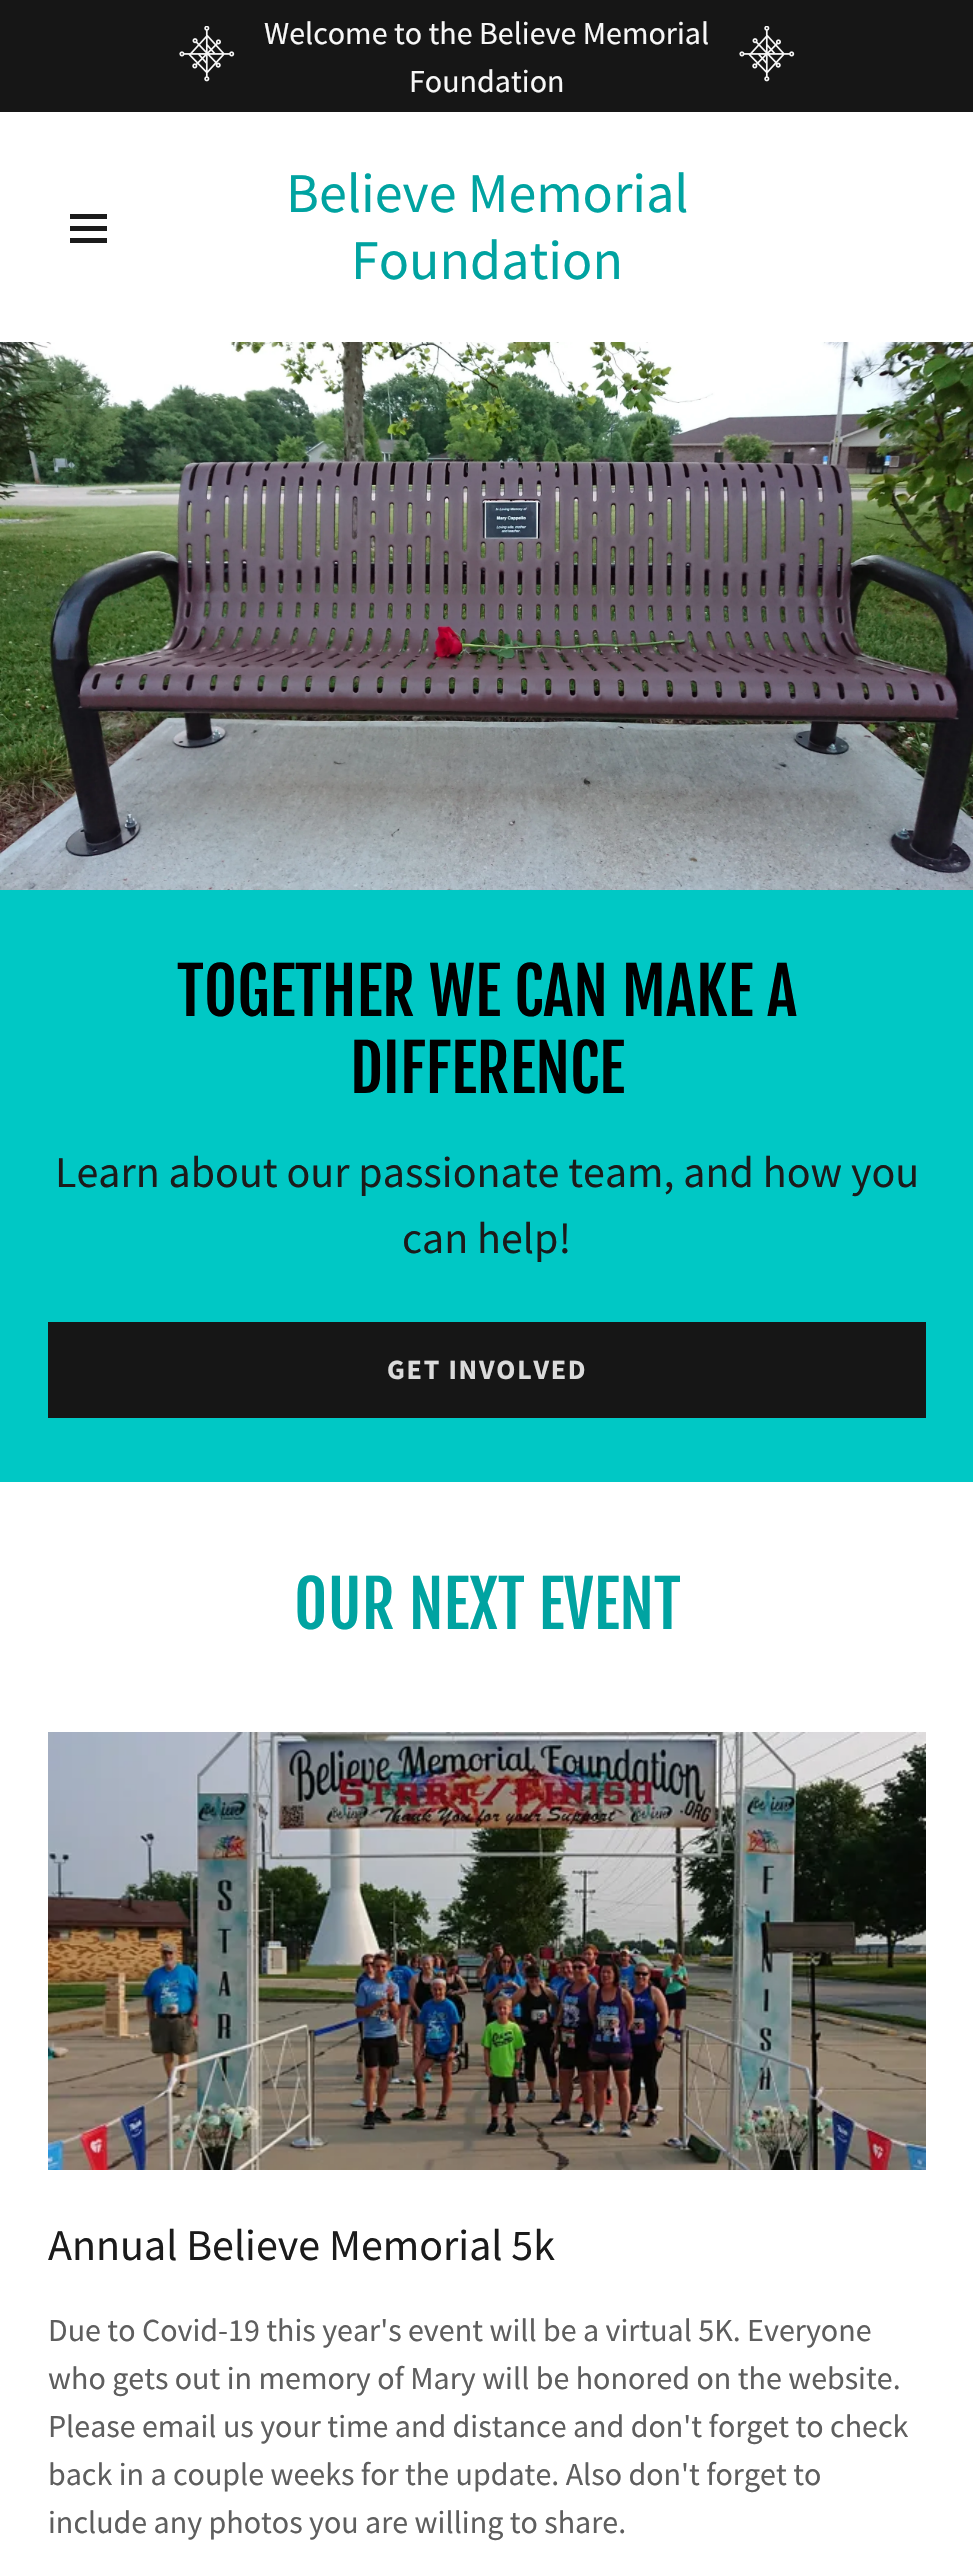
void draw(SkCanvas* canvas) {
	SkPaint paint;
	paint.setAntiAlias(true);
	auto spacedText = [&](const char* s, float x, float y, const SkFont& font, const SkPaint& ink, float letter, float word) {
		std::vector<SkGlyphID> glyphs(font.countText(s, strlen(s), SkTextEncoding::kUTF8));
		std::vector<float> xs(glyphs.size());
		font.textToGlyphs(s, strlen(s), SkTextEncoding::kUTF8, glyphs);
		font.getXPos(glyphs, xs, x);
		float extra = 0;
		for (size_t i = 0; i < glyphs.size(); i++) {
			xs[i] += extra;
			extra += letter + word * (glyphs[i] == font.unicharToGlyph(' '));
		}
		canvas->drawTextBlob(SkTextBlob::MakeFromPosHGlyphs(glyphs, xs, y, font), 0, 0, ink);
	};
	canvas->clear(0xff00c8c5);
	paint.setColor(0xff161616);
	canvas->drawRect(SkRect::MakeXYWH(0, 0, 973, 112), paint);
	canvas->drawImageRect(SkImages::DeferredFromEncodedData(SkData::MakeFromFileName("img1.png")), SkRect::MakeXYWH(179, 26, 56, 56), SkSamplingOptions());
	SkFont f1(fontMgr->matchFamilyStyle("Source Sans Pro", SkFontStyle::Normal()), 32);
	f1.setSubpixel(true);
	paint.setColor(0xfff7f7f7);
	canvas->drawString("Welcome to the Believe Memorial", 264, 44, f1, paint);
	canvas->drawString("Foundation", 409, 92, f1, paint);
	canvas->drawImageRect(SkImages::DeferredFromEncodedData(SkData::MakeFromFileName("img1.png")), SkRect::MakeXYWH(739, 26, 56, 56), SkSamplingOptions());
	paint.setColor(0xffffffff);
	canvas->drawRect(SkRect::MakeXYWH(0, 112, 973, 230), paint);
	paint.setColor(0xff1b1b1b);
	canvas->drawRect(SkRect::MakeXYWH(70, 214, 37, 5), paint);
	canvas->drawRect(SkRect::MakeXYWH(70, 226, 37, 5), paint);
	canvas->drawRect(SkRect::MakeXYWH(70, 238, 37, 5), paint);
	SkFont f2(fontMgr->matchFamilyStyle("Source Sans Pro", SkFontStyle::Normal()), 56);
	f2.setSubpixel(true);
	paint.setColor(0xff00a3a1);
	canvas->drawString("Believe Memorial", 286, 212, f2, paint);
	canvas->drawString("Foundation", 351, 279, f2, paint);
	canvas->drawImageRect(SkImages::DeferredFromEncodedData(SkData::MakeFromFileName("img2.png")), SkRect::MakeXYWH(0, 342, 973, 548), SkSamplingOptions());
	SkFont f3(fontMgr->matchFamilyStyle("Fjalla One", SkFontStyle::Normal()), 64);
	f3.setSubpixel(true);
	paint.setColor(0xff000000);
	canvas->drawString("TOGETHER WE CAN MAKE A", 177, 1016, f3, paint);
	canvas->drawString("DIFFERENCE", 350, 1093, f3, paint);
	SkFont f4(fontMgr->matchFamilyStyle("Source Sans Pro", SkFontStyle::Normal()), 44);
	f4.setSubpixel(true);
	paint.setColor(0xff1b1b1b);
	canvas->drawString("Learn about our passionate team, and how you", 55, 1187, f4, paint);
	canvas->drawString("can help!", 402, 1253, f4, paint);
	paint.setColor(0xff161616);
	canvas->drawRect(SkRect::MakeXYWH(48, 1322, 878, 96), paint);
	SkFont f5(fontMgr->matchFamilyStyle("Source Sans Pro", SkFontStyle::Bold()), 28);
	f5.setSubpixel(true);
	paint.setColor(0xffdbdbdb);
	spacedText("GET INVOLVED", 387, 1379, f5, paint, 1.75, 0);
	paint.setColor(0xffffffff);
	canvas->drawRect(SkRect::MakeXYWH(0, 1482, 973, 1080), paint);
	paint.setColor(0xff00a3a1);
	canvas->drawString("OUR NEXT EVENT", 294, 1629, f3, paint);
	canvas->drawImageRect(SkImages::DeferredFromEncodedData(SkData::MakeFromFileName("img3.png")), SkRect::MakeXYWH(48, 1732, 878, 438), SkSamplingOptions());
	paint.setColor(0xff1b1b1b);
	canvas->drawString("Annual Believe Memorial 5k", 48, 2260, f4, paint);
	paint.setColor(0xff5e5e5e);
	canvas->drawString("Due to Covid-19 this year's event will be a virtual 5K. Everyone", 48, 2341, f1, paint);
	canvas->drawString("who gets out in memory of Mary will be honored on the website.", 48, 2389, f1, paint);
	canvas->drawString("Please email us your time and distance and don't forget to check", 48, 2437, f1, paint);
	canvas->drawString("back in a couple weeks for the update. Also don't forget to", 48, 2485, f1, paint);
	canvas->drawString("include any photos you are willing to share.", 48, 2533, f1, paint);
}
